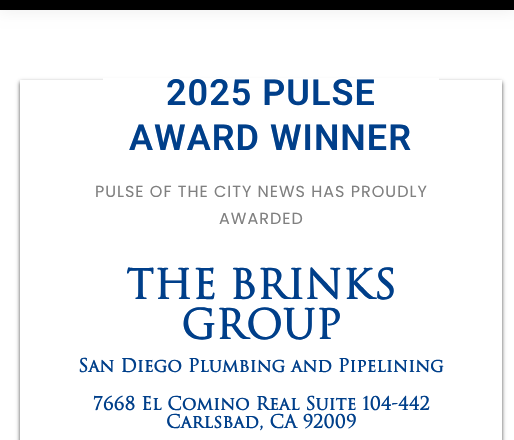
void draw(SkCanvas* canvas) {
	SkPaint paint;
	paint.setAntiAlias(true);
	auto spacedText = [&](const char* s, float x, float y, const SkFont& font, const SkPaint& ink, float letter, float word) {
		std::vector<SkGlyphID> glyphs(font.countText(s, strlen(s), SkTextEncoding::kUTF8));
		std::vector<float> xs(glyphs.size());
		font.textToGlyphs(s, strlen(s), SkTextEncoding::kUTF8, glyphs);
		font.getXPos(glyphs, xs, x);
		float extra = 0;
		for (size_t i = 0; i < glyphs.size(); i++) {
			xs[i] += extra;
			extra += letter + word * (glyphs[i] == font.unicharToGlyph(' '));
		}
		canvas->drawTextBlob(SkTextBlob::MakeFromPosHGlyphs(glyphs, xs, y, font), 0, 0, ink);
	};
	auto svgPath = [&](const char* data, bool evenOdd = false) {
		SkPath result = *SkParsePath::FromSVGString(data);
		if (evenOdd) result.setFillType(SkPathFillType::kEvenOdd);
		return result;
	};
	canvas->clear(0xffffffff);
	paint.setColor(0x12000000);
	paint.setMaskFilter(SkMaskFilter::MakeBlur(kNormal_SkBlurStyle, 7.5));
	canvas->drawRect(SkRect::MakeXYWH(-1, -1, 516, 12), paint);
	paint.setMaskFilter(nullptr);
	paint.setColor(0xff000000);
	canvas->drawRect(SkRect::MakeXYWH(0, 0, 514, 10), paint);
	canvas->save();
	canvas->clipPath(svgPath("M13 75H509V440H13ZM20 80H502V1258H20Z", true), true);
	paint.setColor(0xff4c4c4c);
	paint.setMaskFilter(SkMaskFilter::MakeBlur(kNormal_SkBlurStyle, 2));
	canvas->drawRect(SkRect::MakeXYWH(20, 82, 482, 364), paint);
	paint.setMaskFilter(nullptr);
	canvas->restore();
	paint.setColor(0xffffffff);
	canvas->drawRect(SkRect::MakeXYWH(103, 78, 336, 2), paint);
	SkFont f1(fontMgr->matchFamilyStyle("Roboto", SkFontStyle(600, SkFontStyle::kNormal_Width, SkFontStyle::kUpright_Slant)), 36);
	f1.setSubpixel(true);
	paint.setColor(0xff003f8a);
	spacedText("2025 PULSE", 166, 105, f1, paint, 1, 0);
	spacedText("AWARD WINNER", 129, 150, f1, paint, 1, 0);
	SkFont f2(fontMgr->matchFamilyStyle("Poppins", SkFontStyle::Normal()), 16);
	f2.setSubpixel(true);
	paint.setColor(0xff808080);
	spacedText("PULSE OF THE CITY NEWS HAS PROUDLY", 95, 197, f2, paint, 1, 0);
	spacedText("AWARDED", 219, 224, f2, paint, 1, 0);
	SkFont f3(fontMgr->matchFamilyStyle("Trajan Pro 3", SkFontStyle::Bold()), 40);
	f3.setSubpixel(true);
	paint.setColor(0xff003f8a);
	canvas->drawString("THE BRINKS", 126, 299, f3, paint);
	canvas->drawString("GROUP", 181, 339, f3, paint);
	SkFont f4(fontMgr->matchFamilyStyle("Trajan Pro 3", SkFontStyle::Bold()), 18);
	f4.setSubpixel(true);
	canvas->drawString("San Diego Plumbing and Pipelining", 78, 372, f4, paint);
	canvas->drawString("7668 El Comino Real Suite 104-442", 93, 410, f4, paint);
	canvas->drawString("Carlsbad, CA 92009", 166, 428, f4, paint);
}
